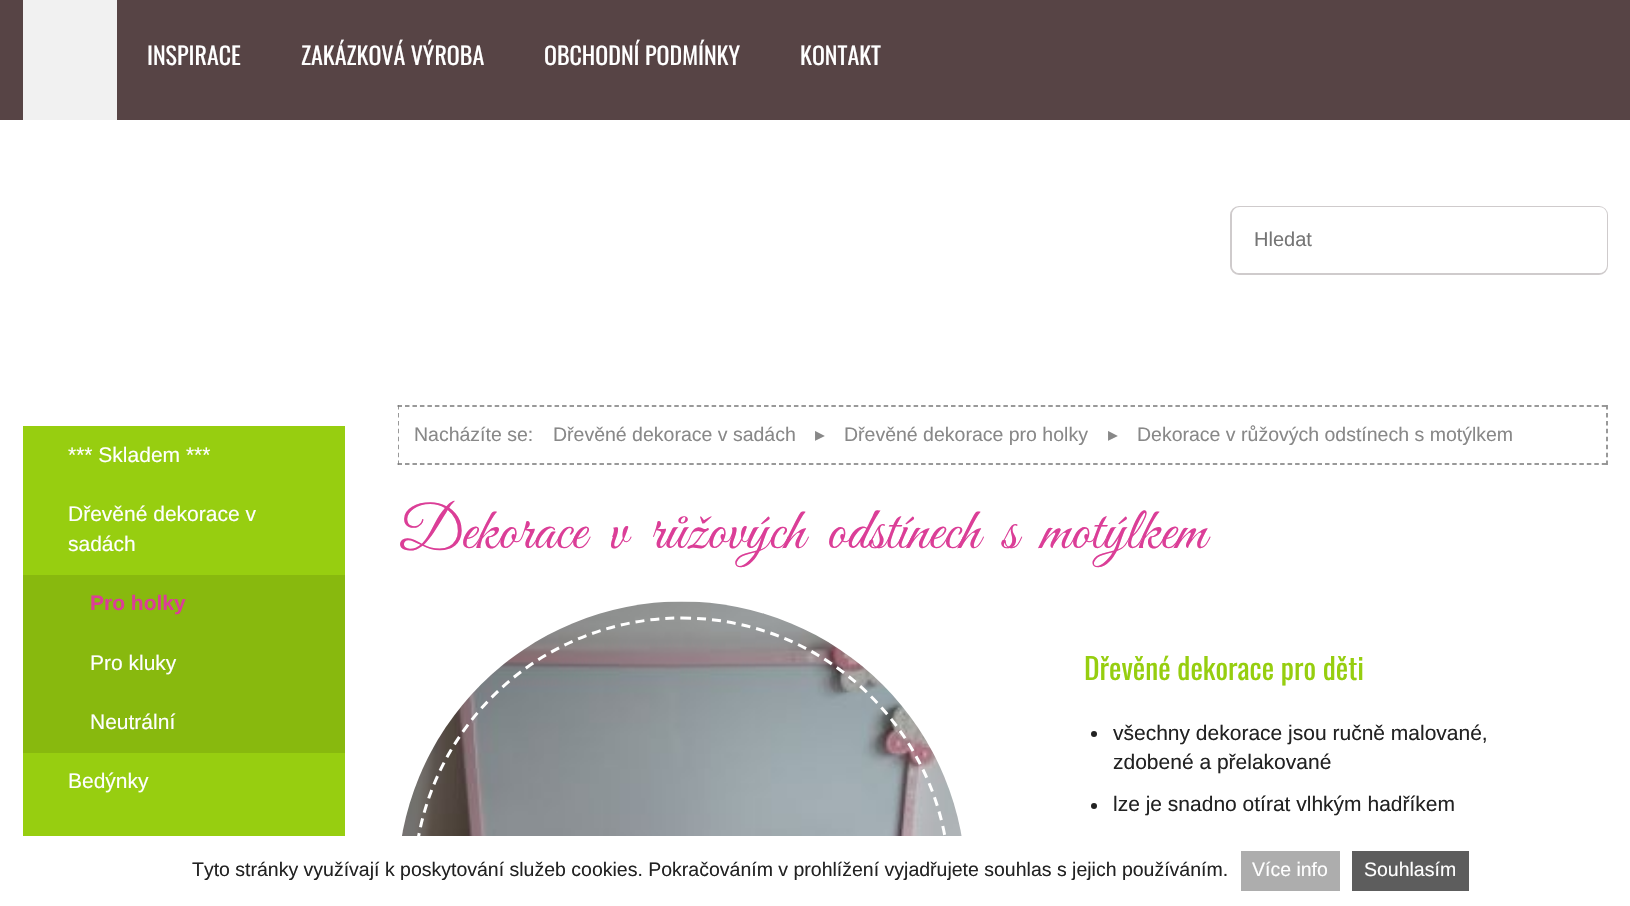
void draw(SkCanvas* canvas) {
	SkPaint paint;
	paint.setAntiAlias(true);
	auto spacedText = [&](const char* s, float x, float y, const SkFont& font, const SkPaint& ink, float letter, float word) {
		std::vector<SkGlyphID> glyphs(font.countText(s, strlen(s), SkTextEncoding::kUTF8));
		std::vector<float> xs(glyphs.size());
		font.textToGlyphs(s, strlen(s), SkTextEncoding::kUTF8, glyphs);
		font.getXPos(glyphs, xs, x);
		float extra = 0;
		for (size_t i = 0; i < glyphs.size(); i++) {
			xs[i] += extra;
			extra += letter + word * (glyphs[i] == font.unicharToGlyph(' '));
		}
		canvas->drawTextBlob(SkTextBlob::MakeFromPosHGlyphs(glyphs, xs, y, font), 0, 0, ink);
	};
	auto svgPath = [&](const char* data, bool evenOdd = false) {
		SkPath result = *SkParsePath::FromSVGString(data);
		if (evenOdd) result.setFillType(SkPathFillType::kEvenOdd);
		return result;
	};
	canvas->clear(0xffffffff);
	paint.setColor(0xff574445);
	canvas->drawRect(SkRect::MakeXYWH(0, 0, 1630, 120), paint);
	paint.setColor(0xfff1f1f1);
	canvas->drawRect(SkRect::MakeXYWH(23, 0, 94, 120), paint);
	SkFont f1(fontMgr->matchFamilyStyle("Oswald", SkFontStyle::Normal()), 24);
	f1.setSubpixel(true);
	paint.setColor(0xffffffff);
	canvas->drawString("INSPIRACE", 147, 65, f1, paint);
	canvas->drawString("ZAKÁZKOVÁ VÝROBA", 301, 65, f1, paint);
	canvas->drawString("OBCHODNÍ PODMÍNKY", 544, 65, f1, paint);
	canvas->drawString("KONTAKT", 800, 65, f1, paint);
	paint.setStroke(true);
	paint.setStrokeWidth(2);
	paint.setColor(0xffcfcbcc);
	canvas->drawRoundRect(SkRect::MakeXYWH(1231, 207, 376, 67), 8, 8, paint);
	paint.setStroke(false);
	paint.setColor(0xffffffff);
	canvas->drawPath(svgPath("M1240 207H1541V273H1240C1235.5 273 1232 269.5 1232 265V215C1232 210.5 1235.5 207 1240 207Z"), paint);
	SkFont f2(fontMgr->matchFamilyStyle("Liberation Sans", SkFontStyle::Normal()), 20);
	f2.setSubpixel(true);
	paint.setColor(0xff757575);
	canvas->drawString("Hledat", 1254, 246, f2, paint);
	paint.setColor(0xffffffff);
	canvas->drawPath(svgPath("M1541 207H1599C1603.5 207 1607 210.5 1607 215V265C1607 269.5 1603.5 273 1599 273H1541Z"), paint);
	paint.setColor(0xff97ce10);
	canvas->drawRect(SkRect::MakeXYWH(23, 426, 322, 410), paint);
	SkFont f3(fontMgr->matchFamilyStyle("Liberation Sans", SkFontStyle::Normal()), 21);
	f3.setSubpixel(true);
	paint.setColor(0xffffffff);
	canvas->drawString("*** Skladem ***", 68, 462, f3, paint);
	canvas->drawString("Dřevěné dekorace v", 68, 521, f3, paint);
	canvas->drawString("sadách", 68, 551, f3, paint);
	paint.setColor(0xff88b90e);
	canvas->drawRect(SkRect::MakeXYWH(23, 575, 322, 178), paint);
	SkFont f4(fontMgr->matchFamilyStyle("Liberation Sans", SkFontStyle::Bold()), 21);
	f4.setSubpixel(true);
	paint.setColor(0xffdb3e97);
	canvas->drawString("Pro holky", 90, 610, f4, paint);
	paint.setColor(0xffffffff);
	canvas->drawString("Pro kluky", 90, 670, f3, paint);
	canvas->drawString("Neutrální", 90, 729, f3, paint);
	canvas->drawString("Bedýnky", 68, 788, f3, paint);
	paint.setStroke(true);
	paint.setStrokeWidth(1.5);
	paint.setColor(0xff777777);
	paint.setPathEffect(SkDashPathEffect::Make({{4.5f, 2.98f}}, 0));
	canvas->drawPath(svgPath("M397.5 406H1608"), paint);
	paint.setPathEffect(nullptr);
	paint.setPathEffect(SkDashPathEffect::Make({{4.5f, 3.44f}}, 0));
	canvas->drawPath(svgPath("M1607 405V465"), paint);
	paint.setPathEffect(nullptr);
	paint.setPathEffect(SkDashPathEffect::Make({{4.5f, 2.98f}}, 0));
	canvas->drawPath(svgPath("M397.5 464H1608"), paint);
	paint.setPathEffect(nullptr);
	canvas->save();
	canvas->clipRect(SkRect::MakeXYWH(398, 405, 1210, 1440));
	paint.setPathEffect(SkDashPathEffect::Make({{4.5f, 3.44f}}, 0));
	canvas->drawPath(svgPath("M398 405V465"), paint);
	paint.setPathEffect(nullptr);
	canvas->restore();
	SkFont f5(fontMgr->matchFamilyStyle("Liberation Sans", SkFontStyle::Normal()), 19.5);
	f5.setSubpixel(true);
	paint.setStroke(false);
	paint.setColor(0xff888888);
	canvas->drawString("Nacházíte se:", 414, 441, f5, paint);
	canvas->drawString("Dřevěné dekorace v sadách", 553, 441, f5, paint);
	SkFont f6(fontMgr->matchFamilyStyle("DejaVu Sans", SkFontStyle::Normal()), 19.5);
	f6.setSubpixel(true);
	canvas->drawString("▸", 815, 441, f6, paint);
	canvas->drawString("Dřevěné dekorace pro holky", 844, 441, f5, paint);
	canvas->drawString("▸", 1108, 441, f6, paint);
	canvas->drawString("Dekorace v růžových odstínech s motýlkem", 1137, 441, f5, paint);
	SkFont f7(fontMgr->matchFamilyStyle("Great Vibes", SkFontStyle::Normal()), 60);
	f7.setSubpixel(true);
	paint.setColor(0xffdb3e97);
	spacedText("Dekorace v růžových odstínech s motýlkem", 398, 548, f7, paint, 0, 12);
	canvas->drawImageRect(SkImages::DeferredFromEncodedData(SkData::MakeFromFileName("img1.png")), SkRect::MakeXYWH(402, 601, 560, 235), SkSamplingOptions());
	paint.setStroke(true);
	paint.setStrokeWidth(3);
	paint.setColor(0xffffffff);
	paint.setPathEffect(SkDashPathEffect::Make({{9, 6}}, 0));
	canvas->drawPath(svgPath("M682 618C829.5 618 949.5 738 949.5 886C949.5 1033.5 829.5 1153.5 682 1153.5C534 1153.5 414 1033.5 414 886C414 738 534 618 682 618Z"), paint);
	paint.setPathEffect(nullptr);
	SkFont f8(fontMgr->matchFamilyStyle("Oswald", SkFontStyle::Normal()), 29.5);
	f8.setSubpixel(true);
	paint.setStroke(false);
	paint.setColor(0xff96ce0f);
	canvas->drawString("Dřevěné dekorace pro děti", 1084, 680, f8, paint);
	paint.setColor(0xff222222);
	canvas->drawCircle(1094, 734, 3, paint);
	canvas->drawString("všechny dekorace jsou ručně malované,", 1113, 740, f3, paint);
	canvas->drawString("zdobené a přelakované", 1113, 769, f3, paint);
	canvas->drawCircle(1094, 806, 3, paint);
	canvas->drawString("lze je snadno otírat vlhkým hadříkem", 1113, 811, f3, paint);
	canvas->drawString("Tyto stránky využívají k poskytování služeb cookies. Pokračováním v prohlížení vyjadřujete souhlas s jejich používáním.", 192, 876, f5, paint);
	paint.setColor(0xffadadad);
	canvas->drawRect(SkRect::MakeXYWH(1241, 851, 99, 40), paint);
	paint.setColor(0xffffffff);
	canvas->drawString("Více info", 1252, 876, f5, paint);
	paint.setColor(0xff5d5d5d);
	canvas->drawRect(SkRect::MakeXYWH(1352, 851, 117, 40), paint);
	paint.setColor(0xffffffff);
	canvas->drawString("Souhlasím", 1364, 876, f5, paint);
}
